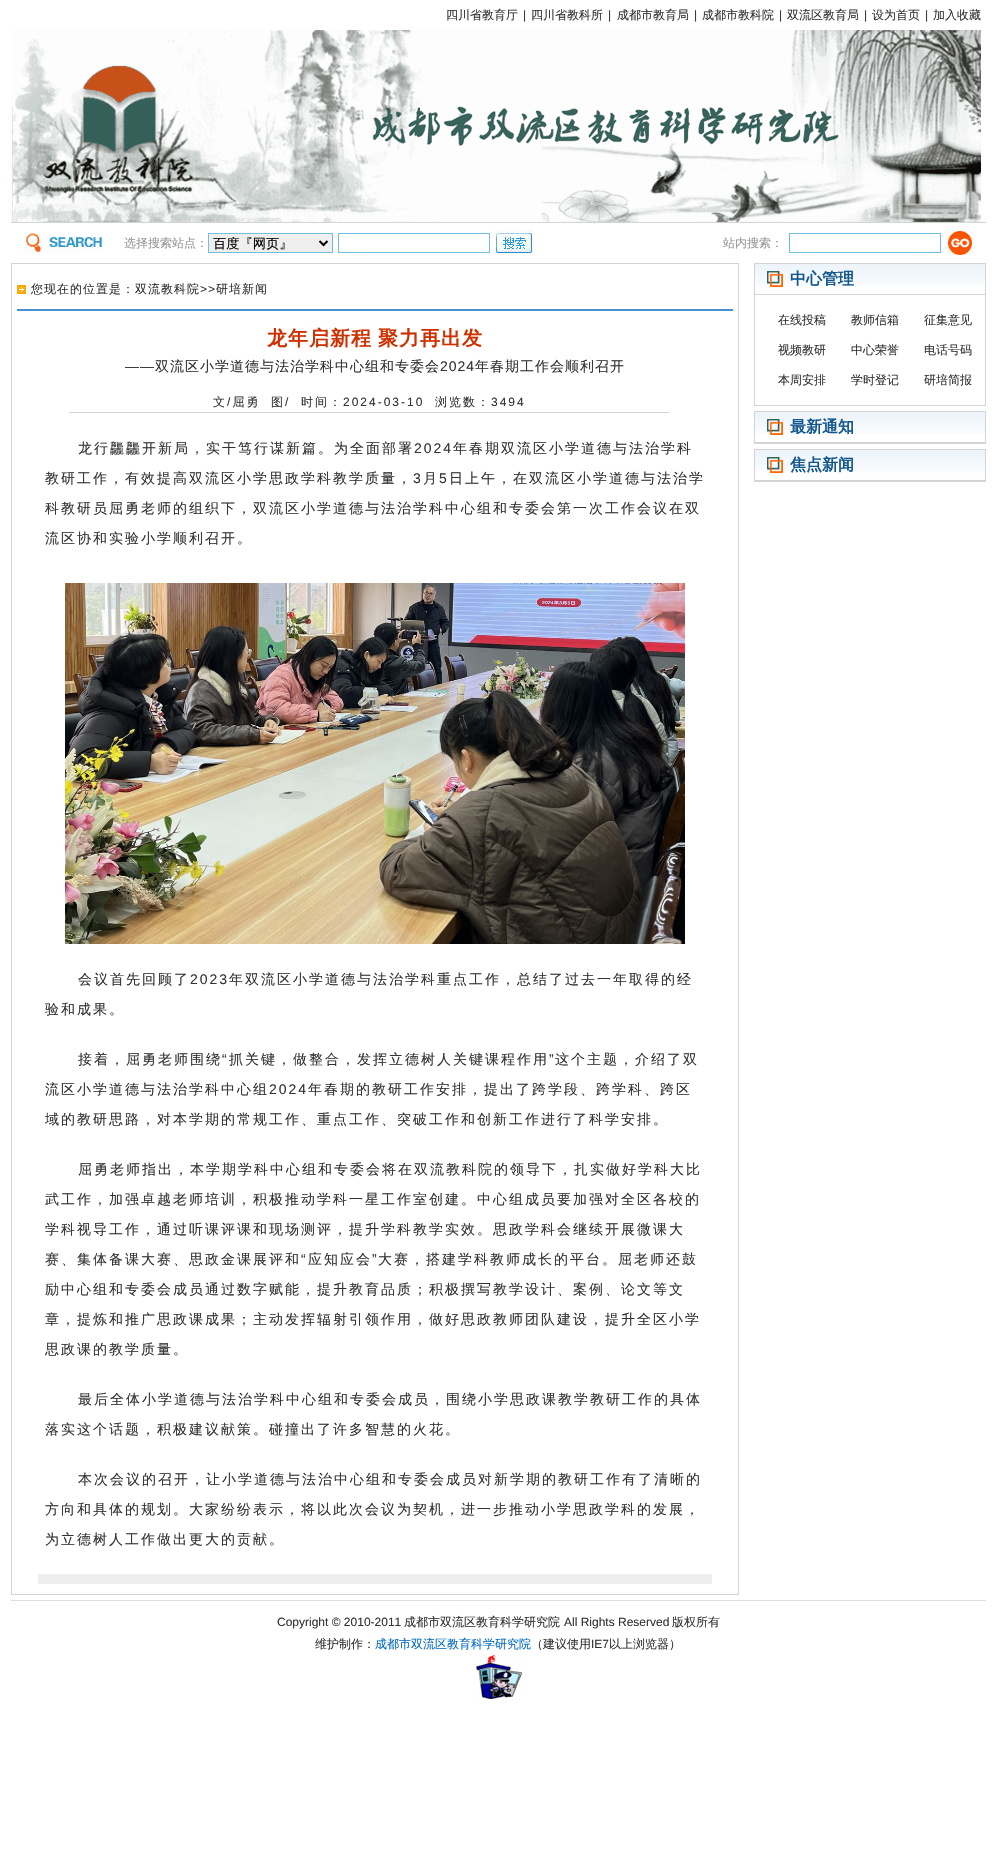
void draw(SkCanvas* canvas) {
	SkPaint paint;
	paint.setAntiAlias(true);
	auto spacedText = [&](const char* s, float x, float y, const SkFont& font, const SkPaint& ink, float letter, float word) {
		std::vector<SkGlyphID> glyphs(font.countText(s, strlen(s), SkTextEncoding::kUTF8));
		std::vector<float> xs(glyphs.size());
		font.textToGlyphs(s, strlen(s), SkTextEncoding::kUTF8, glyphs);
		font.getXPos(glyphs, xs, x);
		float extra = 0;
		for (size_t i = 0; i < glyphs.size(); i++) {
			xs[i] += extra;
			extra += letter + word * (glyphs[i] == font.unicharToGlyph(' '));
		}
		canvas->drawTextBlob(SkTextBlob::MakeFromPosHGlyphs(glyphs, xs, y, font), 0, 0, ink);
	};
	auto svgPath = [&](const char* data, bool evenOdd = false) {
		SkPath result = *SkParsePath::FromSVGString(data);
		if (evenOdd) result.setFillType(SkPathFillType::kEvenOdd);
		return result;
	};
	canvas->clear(0xffffffff);
	paint.setColor(0xffd4d4d4);
	canvas->drawRect(SkRect::MakeXYWH(11, 222, 975, 1), paint);
	SkFont f1(fontMgr->matchFamilyStyle("WenQuanYi Zen Hei", SkFontStyle(500, SkFontStyle::kNormal_Width, SkFontStyle::kUpright_Slant)), 12);
	f1.setSubpixel(true);
	paint.setColor(0xff333333);
	canvas->drawString("四川省教育厅", 446, 19, f1, paint);
	SkFont f2(fontMgr->matchFamilyStyle("Liberation Sans", SkFontStyle::Normal()), 12);
	f2.setSubpixel(true);
	canvas->drawString("|", 523, 19, f2, paint);
	canvas->drawString("四川省教科所", 531, 19, f1, paint);
	canvas->drawString("|", 608, 19, f2, paint);
	canvas->drawString("成都市教育局", 617, 19, f1, paint);
	canvas->drawString("|", 694, 19, f2, paint);
	canvas->drawString("成都市教科院", 702, 19, f1, paint);
	canvas->drawString("|", 779, 19, f2, paint);
	canvas->drawString("双流区教育局", 787, 19, f1, paint);
	canvas->drawString("|", 864, 19, f2, paint);
	canvas->drawString("设为首页", 872, 19, f1, paint);
	canvas->drawString("|", 925, 19, f2, paint);
	canvas->drawString("加入收藏", 933, 19, f1, paint);
	canvas->drawImageRect(SkImages::DeferredFromEncodedData(SkData::MakeFromFileName("img1.png")), SkRect::MakeXYWH(11, 30, 970, 192), SkSamplingOptions());
	canvas->drawImageRect(SkImages::DeferredFromEncodedData(SkData::MakeFromFileName("img2.png")), SkRect::MakeXYWH(24, 233, 79, 20), SkSamplingOptions());
	paint.setColor(0xff969696);
	canvas->drawString("选择搜索站点：", 124, 247, f1, paint);
	paint.setColor(0xffefefef);
	canvas->drawRect(SkRect::MakeXYWH(208.5, 233.5, 124, 19), paint);
	paint.setStroke(true);
	paint.setStrokeWidth(1);
	paint.setColor(0xff71bee5);
	canvas->drawRect(SkRect::MakeXYWH(208.5, 233.5, 124, 19), paint);
	paint.setStrokeWidth(2);
	paint.setColor(0xff000000);
	canvas->drawPath(svgPath("M319.5 241L323.5 245L327.5 241"), paint);
	SkFont f3(fontMgr->matchFamilyStyle("WenQuanYi Zen Hei", SkFontStyle(500, SkFontStyle::kNormal_Width, SkFontStyle::kUpright_Slant)), 13.25);
	f3.setSubpixel(true);
	paint.setStroke(false);
	canvas->drawString("百度『网页』", 213, 248, f3, paint);
	paint.setStroke(true);
	paint.setStrokeWidth(1);
	paint.setColor(0xff71bee5);
	canvas->drawRect(SkRect::MakeXYWH(338.5, 233.5, 151, 19), paint);
	canvas->drawImageRect(SkImages::DeferredFromEncodedData(SkData::MakeFromFileName("img3.png")), SkRect::MakeXYWH(495, 230, 38, 24), SkSamplingOptions());
	paint.setStroke(false);
	paint.setColor(0xff969696);
	canvas->drawString("站内搜索：", 723, 247, f1, paint);
	paint.setStroke(true);
	paint.setColor(0xff71bee5);
	canvas->drawRect(SkRect::MakeXYWH(789.5, 233.5, 151, 19), paint);
	canvas->drawImageRect(SkImages::DeferredFromEncodedData(SkData::MakeFromFileName("img4.png")), SkRect::MakeXYWH(946, 230, 28, 25), SkSamplingOptions());
	paint.setColor(0xffd3d3d3);
	canvas->drawRect(SkRect::MakeXYWH(11.5, 263.5, 727, 1331), paint);
	canvas->drawImageRect(SkImages::DeferredFromEncodedData(SkData::MakeFromFileName("img5.png")), SkRect::MakeXYWH(17, 285, 9, 9), SkSamplingOptions());
	paint.setStroke(false);
	paint.setColor(0xff4891ce);
	canvas->drawRect(SkRect::MakeXYWH(17, 309, 716, 2), paint);
	paint.setColor(0xff333333);
	spacedText("您现在的位置是：双流教科院", 31, 293, f1, paint, 1, 0);
	spacedText(">>", 200, 293, f2, paint, 1, 0);
	spacedText("研培新闻", 216, 293, f1, paint, 1, 0);
	SkFont f4(fontMgr->matchFamilyStyle("WenQuanYi Zen Hei", SkFontStyle::Bold()), 20);
	f4.setSubpixel(true);
	paint.setColor(0xffce3000);
	spacedText("龙年启新程", 267, 345, f4, paint, 1, 0);
	spacedText("聚力再出发", 378, 345, f4, paint, 1, 0);
	SkFont f5(fontMgr->matchFamilyStyle("Liberation Sans", SkFontStyle::Normal()), 14);
	f5.setSubpixel(true);
	paint.setColor(0xff333333);
	spacedText("——", 125, 371, f5, paint, 1, 0);
	SkFont f6(fontMgr->matchFamilyStyle("WenQuanYi Zen Hei", SkFontStyle(500, SkFontStyle::kNormal_Width, SkFontStyle::kUpright_Slant)), 14);
	f6.setSubpixel(true);
	spacedText("双流区小学道德与法治学科中心组和专委会", 155, 371, f6, paint, 1, 0);
	spacedText("2024", 440, 371, f5, paint, 1, 0);
	spacedText("年春期工作会顺利召开", 475, 371, f6, paint, 1, 0);
	paint.setColor(0xffd3d3d3);
	canvas->drawRect(SkRect::MakeXYWH(69, 412, 600, 1), paint);
	paint.setColor(0xff333333);
	spacedText("文 屈勇", 213, 406, f1, paint, 2, 0);
	spacedText("图", 271, 406, f1, paint, 2, 0);
	spacedText("时间：", 301, 406, f1, paint, 2, 0);
	spacedText("浏览数：", 435, 406, f1, paint, 2, 0);
	spacedText("/", 227, 406, f2, paint, 2, 0);
	spacedText("/", 285, 406, f2, paint, 2, 0);
	spacedText("2024-03-10", 343, 406, f2, paint, 2, 0);
	spacedText("3494", 491, 406, f2, paint, 2, 0);
	spacedText("龙行龘龘开新局，实干笃行谋新篇。为全面部署", 78, 453, f6, paint, 2, 0);
	spacedText("2024", 414, 453, f5, paint, 2, 0);
	spacedText("年春期双流区小学道德与法治学科", 453, 453, f6, paint, 2, 0);
	spacedText("教研工作，有效提高双流区小学思政学科教学质量，", 45, 483, f6, paint, 2, 0);
	spacedText("3", 413, 483, f5, paint, 2, 0);
	spacedText("月", 423, 483, f6, paint, 2, 0);
	spacedText("5", 439, 483, f5, paint, 2, 0);
	spacedText("日上午，在双流区小学道德与法治学", 449, 483, f6, paint, 2, 0);
	spacedText("科教研员屈勇老师的组织下，双流区小学道德与法治学科中心组和专委会第一次工作会议在双", 45, 513, f6, paint, 2, 0);
	spacedText("流区协和实验小学顺利召开。", 45, 543, f6, paint, 2, 0);
	canvas->drawImageRect(SkImages::DeferredFromEncodedData(SkData::MakeFromFileName("img6.png")), SkRect::MakeXYWH(65, 583, 620, 361), SkSamplingOptions());
	spacedText("会议首先回顾了", 78, 984, f6, paint, 2, 0);
	spacedText("2023", 190, 984, f5, paint, 2, 0);
	spacedText("年双流区小学道德与法治学科重点工作，总结了过去一年取得的经", 229, 984, f6, paint, 2, 0);
	spacedText("验和成果。", 45, 1014, f6, paint, 2, 0);
	spacedText("接着，屈勇老师围绕", 78, 1064, f6, paint, 2, 0);
	spacedText("“", 222, 1064, f5, paint, 2, 0);
	spacedText("抓关键，做整合，发挥立德树人关键课程作用", 229, 1064, f6, paint, 2, 0);
	spacedText("”", 549, 1064, f5, paint, 2, 0);
	spacedText("这个主题，介绍了双", 555, 1064, f6, paint, 2, 0);
	spacedText("流区小学道德与法治学科中心组", 45, 1094, f6, paint, 2, 0);
	spacedText("2024", 269, 1094, f5, paint, 2, 0);
	spacedText("年春期的教研工作安排，提出了跨学段、跨学科、跨区", 308, 1094, f6, paint, 2, 0);
	spacedText("域的教研思路，对本学期的常规工作、重点工作、突破工作和创新工作进行了科学安排。", 45, 1124, f6, paint, 2, 0);
	spacedText("屈勇老师指出，本学期学科中心组和专委会将在双流教科院的领导下，扎实做好学科大比", 78, 1174, f6, paint, 2, 0);
	spacedText("武工作，加强卓越老师培训，积极推动学科一星工作室创建。中心组成员要加强对全区各校的", 45, 1204, f6, paint, 2, 0);
	spacedText("学科视导工作，通过听课评课和现场测评，提升学科教学实效。思政学科会继续开展微课大", 45, 1234, f6, paint, 2, 0);
	spacedText("赛、集体备课大赛、思政金课展评和", 45, 1264, f6, paint, 2, 0);
	spacedText("“", 301, 1264, f5, paint, 2, 0);
	spacedText("应知应会", 308, 1264, f6, paint, 2, 0);
	spacedText("”", 372, 1264, f5, paint, 2, 0);
	spacedText("大赛，搭建学科教师成长的平台。屈老师还鼓", 378, 1264, f6, paint, 2, 0);
	spacedText("励中心组和专委会成员通过数字赋能，提升教育品质；积极撰写教学设计、案例、论文等文", 45, 1294, f6, paint, 2, 0);
	spacedText("章，提炼和推广思政课成果；主动发挥辐射引领作用，做好思政教师团队建设，提升全区小学", 45, 1324, f6, paint, 2, 0);
	spacedText("思政课的教学质量。", 45, 1354, f6, paint, 2, 0);
	spacedText("最后全体小学道德与法治学科中心组和专委会成员，围绕小学思政课教学教研工作的具体", 78, 1404, f6, paint, 2, 0);
	spacedText("落实这个话题，积极建议献策。碰撞出了许多智慧的火花。", 45, 1434, f6, paint, 2, 0);
	spacedText("本次会议的召开，让小学道德与法治中心组和专委会成员对新学期的教研工作有了清晰的", 78, 1484, f6, paint, 2, 0);
	spacedText("方向和具体的规划。大家纷纷表示，将以此次会议为契机，进一步推动小学思政学科的发展，", 45, 1514, f6, paint, 2, 0);
	spacedText("为立德树人工作做出更大的贡献。", 45, 1544, f6, paint, 2, 0);
	paint.setColor(0xffededed);
	canvas->drawRect(SkRect::MakeXYWH(38, 1574, 674, 10), paint);
	paint.setStroke(true);
	paint.setColor(0xffd4d4d4);
	canvas->drawRect(SkRect::MakeXYWH(754.5, 263.5, 231, 142), paint);
	canvas->drawImageRect(SkImages::DeferredFromEncodedData(SkData::MakeFromFileName("img7.png")), SkRect::MakeXYWH(755, 264, 230, 23), SkSamplingOptions());
	paint.setStroke(false);
	canvas->drawRect(SkRect::MakeXYWH(755, 294, 230, 1), paint);
	SkFont f7(fontMgr->matchFamilyStyle("WenQuanYi Zen Hei", SkFontStyle::Bold()), 16);
	f7.setSubpixel(true);
	paint.setColor(0xff12578e);
	canvas->drawString("中心管理", 790, 284, f7, paint);
	paint.setColor(0xff333333);
	canvas->drawString("在线投稿", 778, 324, f1, paint);
	canvas->drawString("教师信箱", 851, 324, f1, paint);
	canvas->drawString("征集意见", 924, 324, f1, paint);
	canvas->drawString("视频教研", 778, 354, f1, paint);
	canvas->drawString("中心荣誉", 851, 354, f1, paint);
	canvas->drawString("电话号码", 924, 354, f1, paint);
	canvas->drawString("本周安排", 778, 384, f1, paint);
	canvas->drawString("学时登记", 851, 384, f1, paint);
	canvas->drawString("研培简报", 924, 384, f1, paint);
	paint.setStroke(true);
	paint.setColor(0xffd4d4d4);
	canvas->drawRect(SkRect::MakeXYWH(754.5, 411.5, 231, 32), paint);
	canvas->drawImageRect(SkImages::DeferredFromEncodedData(SkData::MakeFromFileName("img7.png")), SkRect::MakeXYWH(755, 412, 230, 23), SkSamplingOptions());
	paint.setStroke(false);
	canvas->drawRect(SkRect::MakeXYWH(755, 442, 230, 1), paint);
	paint.setColor(0xff12578e);
	canvas->drawString("最新通知", 790, 432, f7, paint);
	paint.setStroke(true);
	paint.setColor(0xffd4d4d4);
	canvas->drawRect(SkRect::MakeXYWH(754.5, 449.5, 231, 32), paint);
	canvas->drawImageRect(SkImages::DeferredFromEncodedData(SkData::MakeFromFileName("img7.png")), SkRect::MakeXYWH(755, 450, 230, 23), SkSamplingOptions());
	paint.setStroke(false);
	canvas->drawRect(SkRect::MakeXYWH(755, 480, 230, 1), paint);
	paint.setColor(0xff12578e);
	canvas->drawString("焦点新闻", 790, 470, f7, paint);
	paint.setColor(0xffdddddd);
	canvas->drawRect(SkRect::MakeXYWH(11, 1600, 975, 1), paint);
	paint.setColor(0xff333333);
	canvas->drawString("Copyright © 2010-2011", 277, 1626, f2, paint);
	canvas->drawString("成都市双流区教育科学研究院", 404, 1626, f1, paint);
	canvas->drawString("All Rights Reserved", 564, 1626, f2, paint);
	canvas->drawString("版权所有", 672, 1626, f1, paint);
	canvas->drawString("维护制作：", 315, 1648, f1, paint);
	paint.setColor(0xff046cc2);
	canvas->drawString("成都市双流区教育科学研究院", 375, 1648, f1, paint);
	paint.setColor(0xff333333);
	canvas->drawString("（建议使用", 531, 1648, f1, paint);
	canvas->drawString("IE7", 591, 1648, f2, paint);
	canvas->drawString("以上浏览器）", 609, 1648, f1, paint);
	canvas->drawImageRect(SkImages::DeferredFromEncodedData(SkData::MakeFromFileName("img8.png")), SkRect::MakeXYWH(476, 1655, 46, 44), SkSamplingOptions());
}
